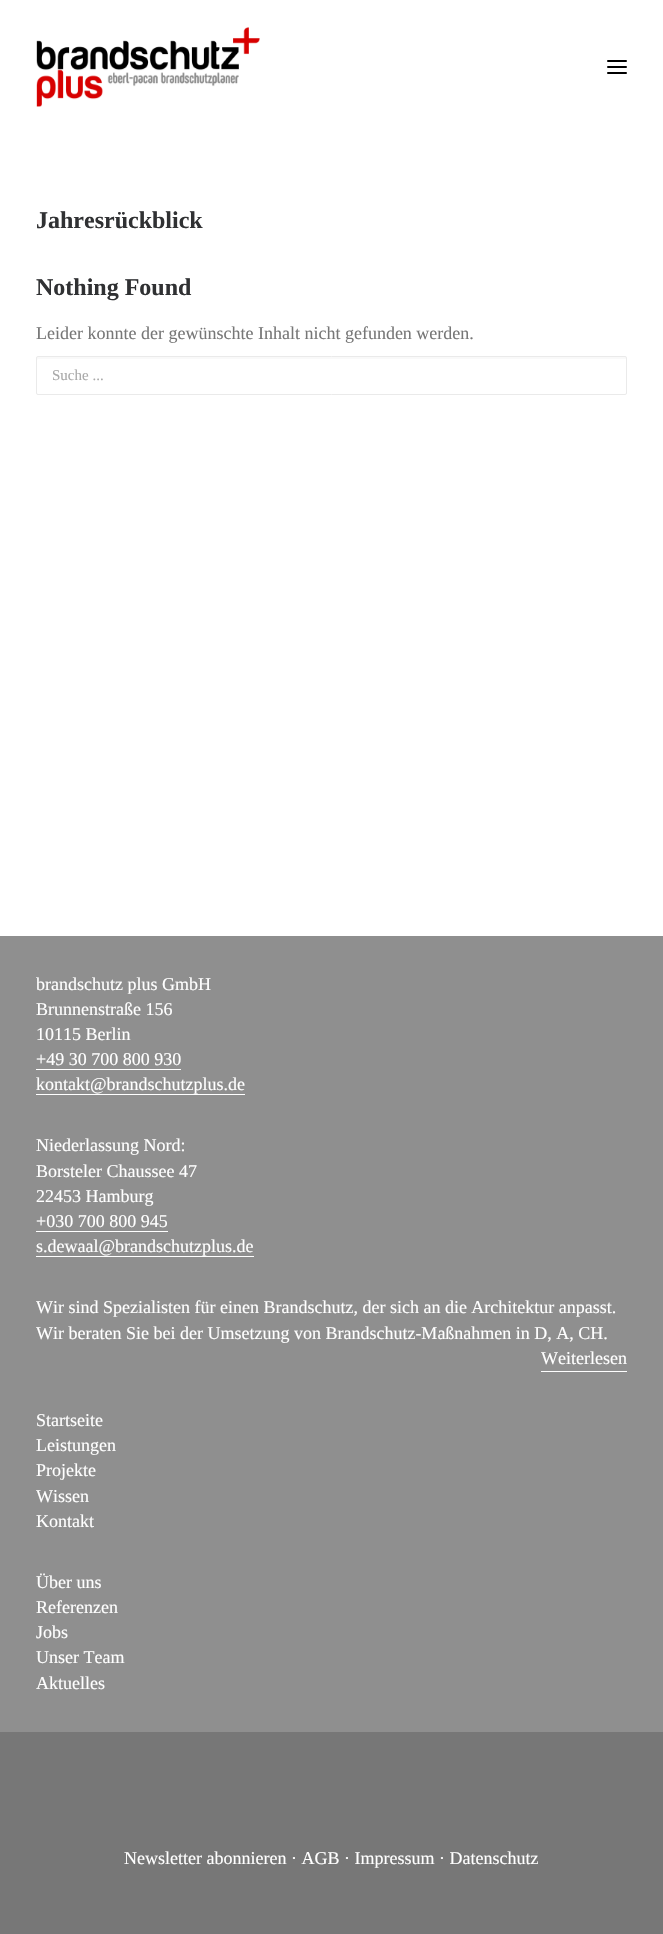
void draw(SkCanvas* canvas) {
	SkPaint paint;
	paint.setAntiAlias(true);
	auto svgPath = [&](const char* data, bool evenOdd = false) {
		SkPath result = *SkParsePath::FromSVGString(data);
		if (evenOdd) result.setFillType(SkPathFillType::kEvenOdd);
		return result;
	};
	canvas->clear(0xffffffff);
	canvas->drawImageRect(SkImages::DeferredFromEncodedData(SkData::MakeFromFileName("img1.png")), SkRect::MakeXYWH(36, 27, 224, 80), SkSamplingOptions());
	paint.setColor(0xff000000);
	canvas->drawRoundRect(SkRect::MakeXYWH(607, 66, 20, 2), 1, 1, paint);
	canvas->drawRoundRect(SkRect::MakeXYWH(607, 60, 20, 2), 1, 1, paint);
	canvas->drawRoundRect(SkRect::MakeXYWH(607, 72, 20, 2), 1, 1, paint);
	SkFont f1(fontMgr->matchFamilyStyle("Liberation Serif", SkFontStyle::Bold()), 24);
	f1.setSubpixel(true);
	paint.setColor(0xff303133);
	canvas->drawString("Jahresrückblick", 36, 228, f1, paint);
	canvas->drawString("Nothing Found", 36, 295, f1, paint);
	SkFont f2(fontMgr->matchFamilyStyle("Liberation Serif", SkFontStyle::Normal()), 18);
	f2.setSubpixel(true);
	paint.setColor(0xff777777);
	canvas->drawString("Leider konnte der gewünschte Inhalt nicht gefunden werden.", 36, 339, f2, paint);
	paint.setColor(0xfff9f9f9);
	canvas->drawPath(svgPath("M38 359H626V357H38H37V360Z"), paint);
	paint.setStroke(true);
	paint.setStrokeWidth(1);
	paint.setColor(0xffeaeaea);
	canvas->drawRoundRect(SkRect::MakeXYWH(36.5, 356.5, 590, 38), 1.5, 1.5, paint);
	SkFont f3(fontMgr->matchFamilyStyle("Liberation Serif", SkFontStyle::Normal()), 15);
	f3.setSubpixel(true);
	paint.setStroke(false);
	paint.setColor(0xffa9a9a9);
	canvas->drawString("Suche ...", 52, 380, f3, paint);
	paint.setColor(0xff8f8f8f);
	canvas->drawRect(SkRect::MakeXYWH(0, 936, 663, 796), paint);
	paint.setColor(0xffffffff);
	canvas->drawString("brandschutz plus GmbH", 36, 990, f2, paint);
	canvas->drawString("Brunnenstraße 156", 36, 1015, f2, paint);
	canvas->drawString("10115 Berlin", 36, 1040, f2, paint);
	canvas->drawString("+49 30 700 800 930", 36, 1065, f2, paint);
	canvas->drawRect(SkRect::MakeXYWH(36, 1069, 145, 1), paint);
	canvas->drawString("kontakt@brandschutzplus.de", 36, 1090, f2, paint);
	canvas->drawRect(SkRect::MakeXYWH(36, 1094, 209, 1), paint);
	canvas->drawString("Niederlassung Nord:", 36, 1151, f2, paint);
	canvas->drawString("Borsteler Chaussee 47", 36, 1177, f2, paint);
	canvas->drawString("22453 Hamburg", 36, 1202, f2, paint);
	canvas->drawString("+030 700 800 945", 36, 1227, f2, paint);
	canvas->drawRect(SkRect::MakeXYWH(36, 1231, 132, 1), paint);
	canvas->drawString("s.dewaal@brandschutzplus.de", 36, 1252, f2, paint);
	canvas->drawRect(SkRect::MakeXYWH(36, 1256, 218, 1), paint);
	canvas->drawString("Wir sind Spezialisten für einen Brandschutz, der sich an die Architektur anpasst.", 36, 1313, f2, paint);
	canvas->drawString("Wir beraten Sie bei der Umsetzung von Brandschutz-Maßnahmen in D, A, CH.", 36, 1339, f2, paint);
	canvas->drawRect(SkRect::MakeXYWH(541, 1371, 86, 1), paint);
	canvas->drawString("Weiterlesen", 541, 1364, f2, paint);
	canvas->drawString("Startseite", 36, 1426, f2, paint);
	canvas->drawString("Leistungen", 36, 1451, f2, paint);
	canvas->drawString("Projekte", 36, 1476, f2, paint);
	canvas->drawString("Wissen", 36, 1502, f2, paint);
	canvas->drawString("Kontakt", 36, 1527, f2, paint);
	canvas->drawString("Über uns", 36, 1588, f2, paint);
	canvas->drawString("Referenzen", 36, 1613, f2, paint);
	canvas->drawString("Jobs", 36, 1638, f2, paint);
	canvas->drawString("Unser Team", 36, 1663, f2, paint);
	canvas->drawString("Aktuelles", 36, 1689, f2, paint);
	paint.setColor(0xff777777);
	canvas->drawRect(SkRect::MakeXYWH(0, 1732, 663, 202), paint);
	paint.setColor(0xffffffff);
	canvas->drawString("Newsletter abonnieren · AGB · Impressum · Datenschutz", 124, 1864, f2, paint);
}
